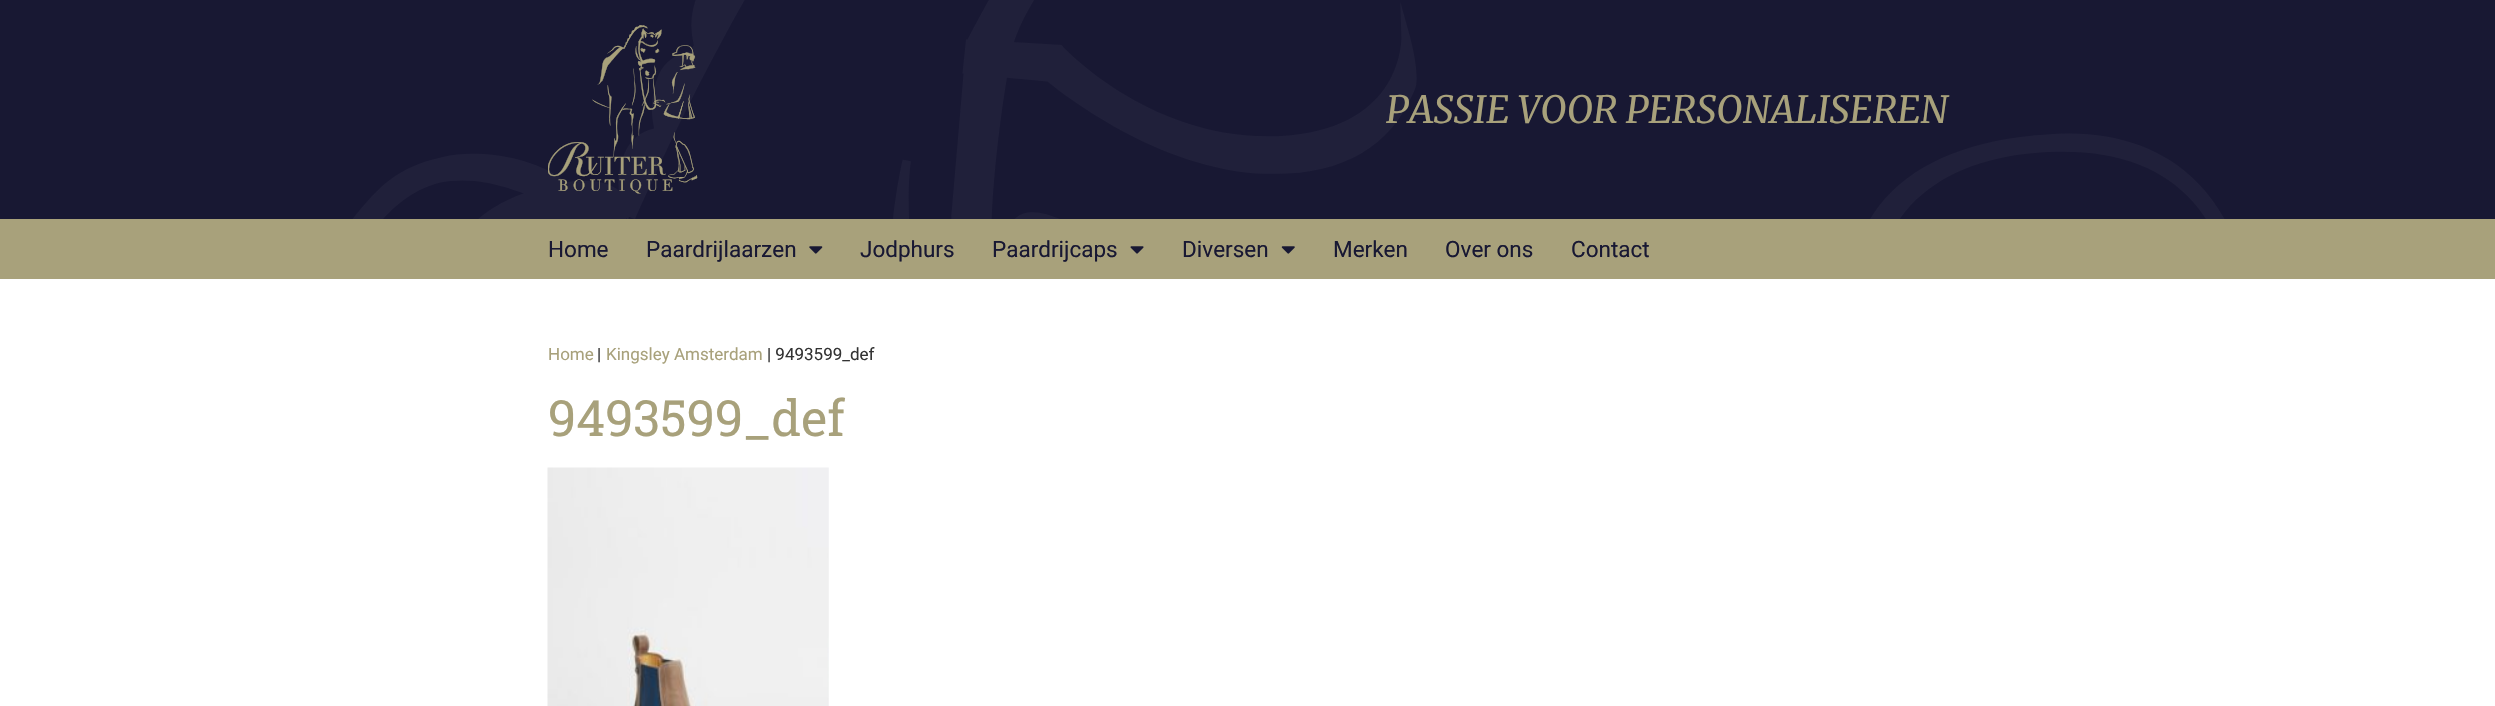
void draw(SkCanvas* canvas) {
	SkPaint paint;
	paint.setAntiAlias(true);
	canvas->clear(0xffffffff);
	paint.setColor(0xff181833);
	canvas->drawRect(SkRect::MakeXYWH(0, 0, 2495, 219), paint);
	canvas->drawImageRect(SkImages::DeferredFromEncodedData(SkData::MakeFromFileName("img1.png")), SkRect::MakeXYWH(352, 0, 1873, 219), SkSamplingOptions());
	canvas->drawImageRect(SkImages::DeferredFromEncodedData(SkData::MakeFromFileName("img2.png")), SkRect::MakeXYWH(548, 25, 150, 169), SkSamplingOptions());
	SkFont f1(fontMgr->matchFamilyStyle("Merriweather", SkFontStyle::Italic()), 37.5);
	f1.setSubpixel(true);
	paint.setColor(0xffa8a17b);
	canvas->drawString("PASSIE VOOR PERSONALISEREN", 1386, 123, f1, paint);
	canvas->drawRect(SkRect::MakeXYWH(0, 219, 2495, 60), paint);
	SkFont f2(fontMgr->matchFamilyStyle("Roboto", SkFontStyle::Normal()), 22.5);
	f2.setSubpixel(true);
	paint.setColor(0xff181833);
	canvas->drawString("Home", 548, 257, f2, paint);
	canvas->drawString("Paardrijlaarzen", 646, 257, f2, paint);
	canvas->drawImageRect(SkImages::DeferredFromEncodedData(SkData::MakeFromFileName("img3.png")), SkRect::MakeXYWH(809, 246, 14, 8), SkSamplingOptions());
	canvas->drawString("Jodphurs", 860, 257, f2, paint);
	canvas->drawString("Paardrijcaps", 992, 257, f2, paint);
	canvas->drawImageRect(SkImages::DeferredFromEncodedData(SkData::MakeFromFileName("img4.png")), SkRect::MakeXYWH(1130, 246, 14, 8), SkSamplingOptions());
	canvas->drawString("Diversen", 1182, 257, f2, paint);
	canvas->drawImageRect(SkImages::DeferredFromEncodedData(SkData::MakeFromFileName("img5.png")), SkRect::MakeXYWH(1281, 246, 14, 8), SkSamplingOptions());
	canvas->drawString("Merken", 1333, 257, f2, paint);
	canvas->drawString("Over ons", 1445, 257, f2, paint);
	canvas->drawString("Contact", 1571, 257, f2, paint);
	SkFont f3(fontMgr->matchFamilyStyle("Roboto", SkFontStyle::Normal()), 17);
	f3.setSubpixel(true);
	paint.setColor(0xffa8a17b);
	canvas->drawString("Home", 548, 360, f3, paint);
	paint.setColor(0xff333333);
	canvas->drawString("|", 597, 360, f3, paint);
	paint.setColor(0xffa8a17b);
	canvas->drawString("Kingsley Amsterdam", 606, 360, f3, paint);
	paint.setColor(0xff333333);
	canvas->drawString("| 9493599_def", 767, 360, f3, paint);
	SkFont f4(fontMgr->matchFamilyStyle("Roboto Slab", SkFontStyle::Normal()), 50);
	f4.setSubpixel(true);
	paint.setColor(0xffa8a17b);
	canvas->drawString("9493599_def", 548, 436, f4, paint);
	canvas->drawImageRect(SkImages::DeferredFromEncodedData(SkData::MakeFromFileName("img6.png")), SkRect::MakeXYWH(547, 467, 282, 239), SkSamplingOptions());
}
